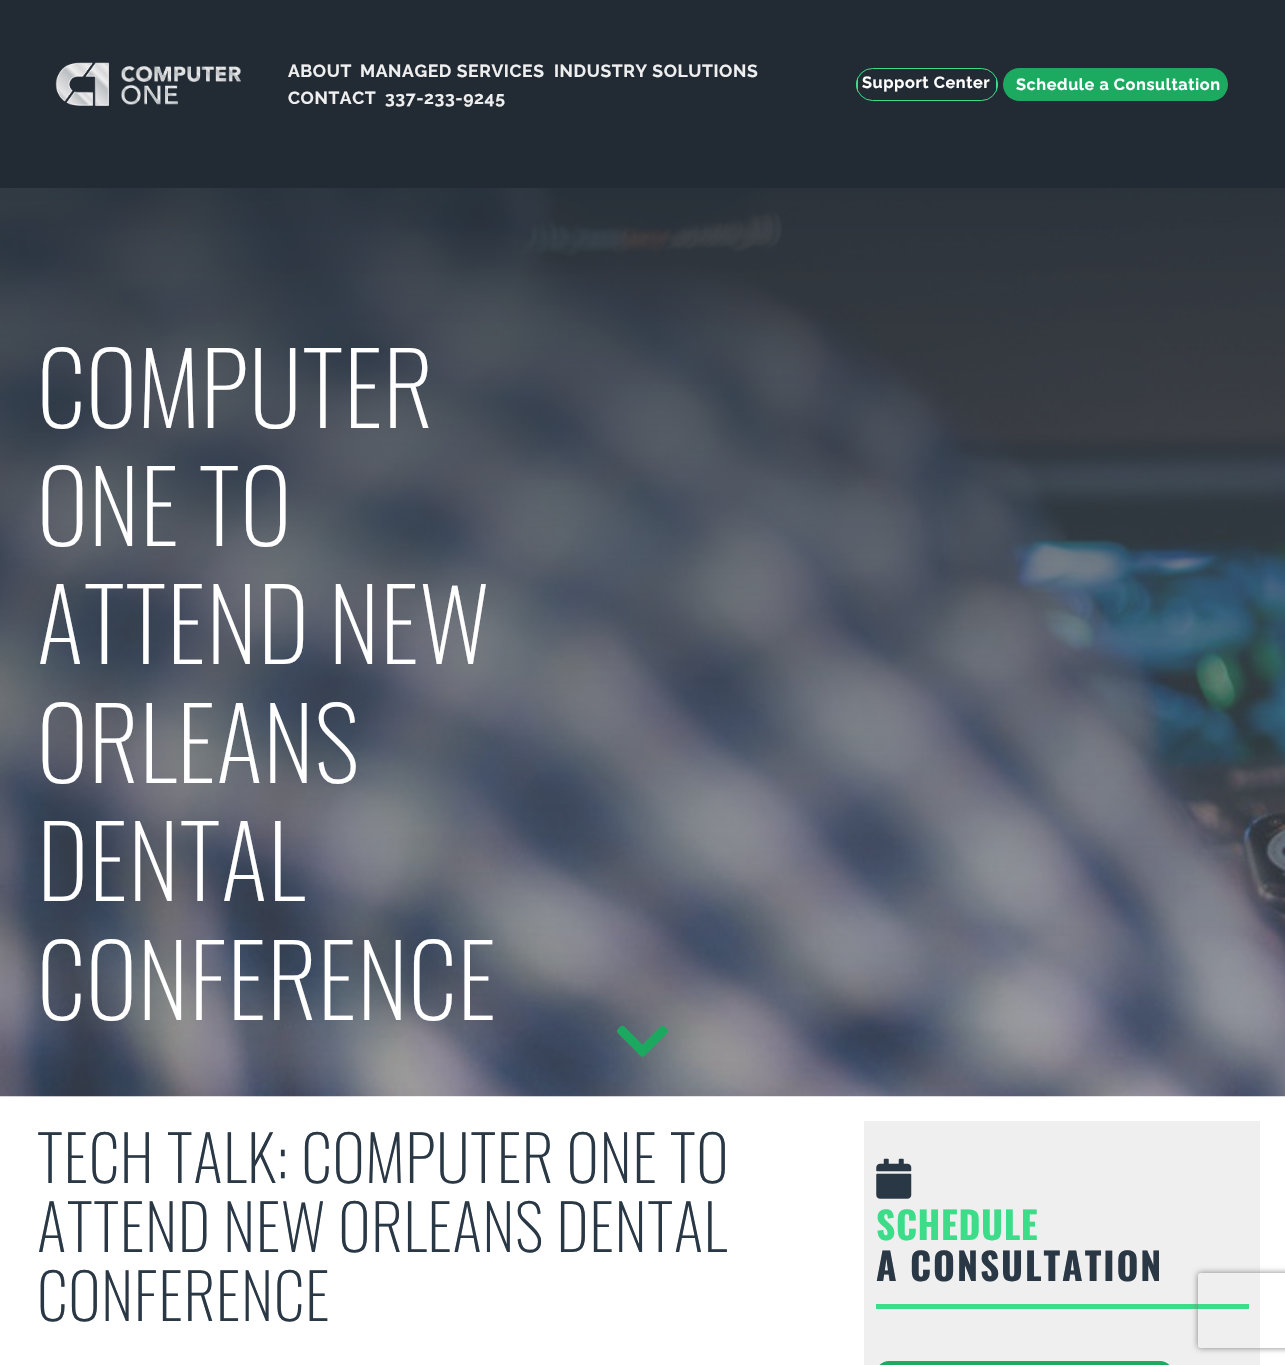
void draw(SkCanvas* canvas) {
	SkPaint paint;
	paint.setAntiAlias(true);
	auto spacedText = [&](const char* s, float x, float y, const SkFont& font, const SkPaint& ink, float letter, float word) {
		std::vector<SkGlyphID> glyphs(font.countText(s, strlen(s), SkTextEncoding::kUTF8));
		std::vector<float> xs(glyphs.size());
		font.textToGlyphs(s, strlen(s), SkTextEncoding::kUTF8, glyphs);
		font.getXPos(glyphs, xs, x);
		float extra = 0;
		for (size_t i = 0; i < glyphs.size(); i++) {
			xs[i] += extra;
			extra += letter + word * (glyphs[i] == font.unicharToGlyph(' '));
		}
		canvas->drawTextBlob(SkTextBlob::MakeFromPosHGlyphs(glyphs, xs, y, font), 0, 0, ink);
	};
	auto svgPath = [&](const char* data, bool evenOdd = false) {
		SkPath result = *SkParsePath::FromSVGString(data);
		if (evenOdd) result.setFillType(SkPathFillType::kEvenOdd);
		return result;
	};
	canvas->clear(0xffffffff);
	paint.setColor(0xff222b34);
	canvas->drawRect(SkRect::MakeXYWH(0, 0, 1285, 188), paint);
	canvas->drawImageRect(SkImages::DeferredFromEncodedData(SkData::MakeFromFileName("img1.png")), SkRect::MakeXYWH(55, 62, 186, 44), SkSamplingOptions());
	SkFont f1(fontMgr->matchFamilyStyle("Raleway", SkFontStyle::Bold()), 17.5);
	f1.setSubpixel(true);
	paint.setColor(0xffefefef);
	spacedText("ABOUT", 288, 77, f1, paint, 0.6, 0);
	spacedText("MANAGED SERVICES", 360, 77, f1, paint, 0.6, 0);
	spacedText("INDUSTRY SOLUTIONS", 554, 77, f1, paint, 0.6, 0);
	spacedText("CONTACT", 288, 104, f1, paint, 0.6, 0);
	spacedText("337-233-9245", 385, 104, f1, paint, 0.6, 0);
	canvas->save();
	canvas->clipPath(svgPath("M872.5 68H981.5C990.5 68 998 75.5 998 84.5C998 93.5 990.5 101 981.5 101H872.5C863.5 101 856 93.5 856 84.5C856 75.5 863.5 68 872.5 68Z"), true);
	{
		const SkColor colors[] = {0xff3cdc89, 0xff3cdc89, 0xff222b34, 0xff222b34};
		const float stops[] = {0, 0.5, 0.5, 1};
		const SkPoint ends[] = {{858, 84}, {580, 84}};
		paint.setShader(SkGradientShader::MakeLinear(ends, colors, stops, 4, SkTileMode::kClamp));
		paint.setAlpha(255);
	}
	canvas->drawRect(SkRect::MakeXYWH(856, 68, 2, 33), paint);
	{
		const SkColor colors[] = {0xff3cdc89, 0xff3cdc89, 0xff222b34, 0xff222b34};
		const float stops[] = {0, 0.5, 0.5, 1};
		const SkPoint ends[] = {{1135, 84}, {858, 84}};
		paint.setShader(SkGradientShader::MakeLinear(ends, colors, stops, 4, SkTileMode::kClamp));
		paint.setAlpha(255);
	}
	canvas->drawPath(svgPath("M858 68H981.5C990.5 68 998 75.5 998 84.5C998 93.5 990.5 101 981.5 101H858Z"), paint);
	canvas->restore();
	paint.setStroke(true);
	paint.setStrokeWidth(1);
	paint.setShader(nullptr);
	paint.setColor(0xff3cdc89);
	canvas->drawRoundRect(SkRect::MakeXYWH(856.5, 68.5, 141, 32), 16, 16, paint);
	SkFont f2(fontMgr->matchFamilyStyle("Raleway", SkFontStyle::Bold()), 16.25);
	f2.setSubpixel(true);
	paint.setStroke(false);
	paint.setColor(0xffffffff);
	spacedText("Support Center", 862, 88, f2, paint, 0.6, 0);
	paint.setColor(0xff1ca960);
	canvas->drawRoundRect(SkRect::MakeXYWH(1003, 68, 225, 33), 16.5, 16.5, paint);
	paint.setColor(0xffffffff);
	spacedText("Schedule a Consultation", 1016, 90, f2, paint, 0.6, 0);
	canvas->drawImageRect(SkImages::DeferredFromEncodedData(SkData::MakeFromFileName("img2.png")), SkRect::MakeXYWH(0, 188, 1285, 909), SkSamplingOptions());
	SkFont f3(fontMgr->matchFamilyStyle("Oswald", SkFontStyle(200, SkFontStyle::kNormal_Width, SkFontStyle::kUpright_Slant)), 98.75);
	f3.setSubpixel(true);
	spacedText("COMPUTER", 37, 428, f3, paint, 0.6, 0);
	spacedText("ONE TO", 37, 546, f3, paint, 0.6, 0);
	spacedText("ATTEND NEW", 37, 664, f3, paint, 0.6, 0);
	spacedText("ORLEANS", 37, 783, f3, paint, 0.6, 0);
	spacedText("DENTAL", 37, 901, f3, paint, 0.6, 0);
	spacedText("CONFERENCE", 37, 1020, f3, paint, 0.6, 0);
	canvas->drawImageRect(SkImages::DeferredFromEncodedData(SkData::MakeFromFileName("img3.png")), SkRect::MakeXYWH(617, 1025, 51, 32), SkSamplingOptions());
	SkFont f4(fontMgr->matchFamilyStyle("Oswald", SkFontStyle(200, SkFontStyle::kNormal_Width, SkFontStyle::kUpright_Slant)), 62.5);
	f4.setSubpixel(true);
	paint.setColor(0xff2a3846);
	spacedText("TECH TALK: COMPUTER ONE TO", 37, 1183, f4, paint, 0.6, 0);
	spacedText("ATTEND NEW ORLEANS DENTAL", 37, 1252, f4, paint, 0.6, 0);
	spacedText("CONFERENCE", 37, 1321, f4, paint, 0.6, 0);
	paint.setColor(0xffefefef);
	canvas->drawRect(SkRect::MakeXYWH(864, 1121, 396, 244), paint);
	canvas->drawImageRect(SkImages::DeferredFromEncodedData(SkData::MakeFromFileName("img4.png")), SkRect::MakeXYWH(876, 1158, 36, 41), SkSamplingOptions());
	SkFont f5(fontMgr->matchFamilyStyle("Oswald", SkFontStyle::Bold()), 37.5);
	f5.setSubpixel(true);
	paint.setColor(0xff3cdc89);
	spacedText("SCHEDULE", 876, 1240, f5, paint, 0.6, 0);
	paint.setColor(0xff2a3846);
	spacedText("A CONSULTATION", 876, 1281, f5, paint, 1.9, 0);
	paint.setColor(0xff3cdc89);
	canvas->drawRect(SkRect::MakeXYWH(876, 1304, 373, 5), paint);
	paint.setColor(0xff1ca960);
	canvas->drawRoundRect(SkRect::MakeXYWH(876, 1361, 297, 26), 22, 22, paint);
	canvas->save();
	canvas->clipPath(svgPath("M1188 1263H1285V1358H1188ZM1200.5 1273H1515.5C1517 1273 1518 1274 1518 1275.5V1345.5C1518 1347 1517 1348 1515.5 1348H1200.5C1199 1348 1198 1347 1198 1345.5V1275.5C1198 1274 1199 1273 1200.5 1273Z", true), true);
	paint.setColor(0xff808080);
	paint.setMaskFilter(SkMaskFilter::MakeBlur(kNormal_SkBlurStyle, 3));
	canvas->drawRoundRect(SkRect::MakeXYWH(1198, 1273, 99, 75), 2.5, 2.5, paint);
	paint.setMaskFilter(nullptr);
	canvas->restore();
}
